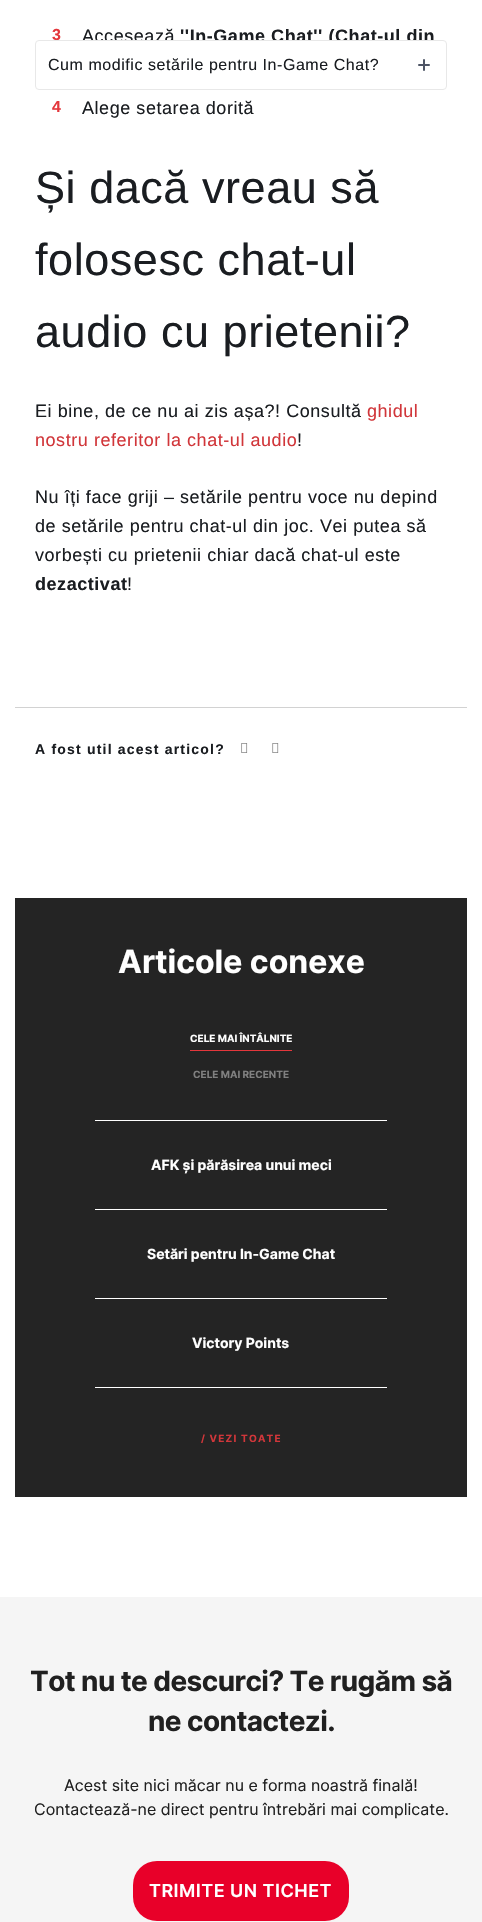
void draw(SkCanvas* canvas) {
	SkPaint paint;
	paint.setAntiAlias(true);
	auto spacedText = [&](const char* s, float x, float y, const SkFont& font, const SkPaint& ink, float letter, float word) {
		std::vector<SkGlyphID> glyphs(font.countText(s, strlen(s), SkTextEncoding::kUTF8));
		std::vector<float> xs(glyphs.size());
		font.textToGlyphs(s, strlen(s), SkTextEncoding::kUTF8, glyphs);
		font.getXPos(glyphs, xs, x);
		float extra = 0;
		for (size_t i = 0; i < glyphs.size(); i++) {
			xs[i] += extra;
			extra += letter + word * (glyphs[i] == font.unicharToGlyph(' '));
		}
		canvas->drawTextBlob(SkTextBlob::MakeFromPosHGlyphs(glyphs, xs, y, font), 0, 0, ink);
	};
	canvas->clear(0xffffffff);
	SkFont f1(fontMgr->matchFamilyStyle("Liberation Sans", SkFontStyle::Bold()), 16);
	f1.setSubpixel(true);
	paint.setColor(0xffe4373c);
	spacedText("3", 52, 40, f1, paint, 0.55, 0);
	SkFont f2(fontMgr->matchFamilyStyle("Liberation Sans", SkFontStyle::Normal()), 18);
	f2.setSubpixel(true);
	paint.setColor(0xff1a1d21);
	spacedText("Accesează", 82, 42, f2, paint, 0.55, 0);
	SkFont f3(fontMgr->matchFamilyStyle("Liberation Sans", SkFontStyle::Bold()), 18);
	f3.setSubpixel(true);
	spacedText("''In-Game Chat'' (Chat-ul din", 180, 42, f3, paint, 0.55, 0);
	paint.setColor(0xffe4373c);
	spacedText("4", 52, 112, f1, paint, 0.55, 0);
	paint.setColor(0xff1a1d21);
	spacedText("Alege setarea dorită", 82, 114, f2, paint, 0.55, 0);
	SkFont f4(fontMgr->matchFamilyStyle("Liberation Sans", SkFontStyle::Normal()), 45);
	f4.setSubpixel(true);
	spacedText("Și dacă vreau să", 35, 203, f4, paint, 0.55, 0);
	spacedText("folosesc chat-ul", 35, 275, f4, paint, 0.55, 0);
	spacedText("audio cu prietenii?", 35, 347, f4, paint, 0.55, 0);
	spacedText("Ei bine, de ce nu ai zis așa?! Consultă", 35, 417, f2, paint, 0.55, 0);
	paint.setColor(0xffd1363a);
	spacedText("ghidul", 367, 417, f2, paint, 0.55, 0);
	spacedText("nostru referitor la chat-ul audio", 35, 446, f2, paint, 0.55, 0);
	paint.setColor(0xff1a1d21);
	spacedText("!", 297, 446, f2, paint, 0.55, 0);
	spacedText("Nu îți face griji – setările pentru voce nu depind", 35, 503, f2, paint, 0.55, 0);
	spacedText("de setările pentru chat-ul din joc. Vei putea să", 35, 532, f2, paint, 0.55, 0);
	spacedText("vorbești cu prietenii chiar dacă chat-ul este", 35, 561, f2, paint, 0.55, 0);
	spacedText("dezactivat", 35, 590, f3, paint, 0.55, 0);
	spacedText("!", 127, 590, f2, paint, 0.55, 0);
	paint.setColor(0xffd2d2d2);
	canvas->drawRect(SkRect::MakeXYWH(15, 707, 452, 1), paint);
	SkFont f5(fontMgr->matchFamilyStyle("Liberation Sans", SkFontStyle::Bold()), 14);
	f5.setSubpixel(true);
	paint.setColor(0xff1a1d21);
	spacedText("A fost util acest articol?", 35, 754, f5, paint, 1.2, 0);
	canvas->drawImageRect(SkImages::DeferredFromEncodedData(SkData::MakeFromFileName("img1.png")), SkRect::MakeXYWH(241, 743, 7, 10), SkSamplingOptions());
	canvas->drawImageRect(SkImages::DeferredFromEncodedData(SkData::MakeFromFileName("img2.png")), SkRect::MakeXYWH(272, 743, 7, 10), SkSamplingOptions());
	paint.setColor(0xffffffff);
	canvas->drawRoundRect(SkRect::MakeXYWH(35.5, 40.5, 411, 49), 3.5, 3.5, paint);
	paint.setStroke(true);
	paint.setStrokeWidth(1);
	paint.setColor(0xffe8e8e8);
	canvas->drawRoundRect(SkRect::MakeXYWH(35.5, 40.5, 411, 49), 3.5, 3.5, paint);
	SkFont f6(fontMgr->matchFamilyStyle("Liberation Sans", SkFontStyle::Normal()), 16);
	f6.setSubpixel(true);
	paint.setStroke(false);
	paint.setColor(0xff1a1d21);
	spacedText("Cum modific setările pentru In-Game Chat?", 48, 70, f6, paint, 0.55, 0);
	paint.setColor(0xff4e5565);
	canvas->drawRoundRect(SkRect::MakeXYWH(423, 59, 2, 12), 1, 1, paint);
	canvas->drawRoundRect(SkRect::MakeXYWH(418, 64, 12, 2), 1, 1, paint);
	paint.setColor(0xff242424);
	canvas->drawRect(SkRect::MakeXYWH(15, 898, 452, 599), paint);
	SkFont f7(fontMgr->matchFamilyStyle("Inter", SkFontStyle::Bold()), 32);
	f7.setSubpixel(true);
	paint.setColor(0xffffffff);
	canvas->drawString("Articole conexe", 118, 973, f7, paint);
	paint.setColor(0xffe4373c);
	canvas->drawRect(SkRect::MakeXYWH(190, 1050, 102, 1), paint);
	SkFont f8(fontMgr->matchFamilyStyle("Inter", SkFontStyle::Bold()), 10);
	f8.setSubpixel(true);
	paint.setColor(0xffffffff);
	canvas->drawString("CELE MAI ÎNTÂLNITE", 190, 1042, f8, paint);
	paint.setColor(0xff808080);
	canvas->drawString("CELE MAI RECENTE", 193, 1078, f8, paint);
	paint.setColor(0xffffffff);
	canvas->drawRect(SkRect::MakeXYWH(95, 1120, 292, 1), paint);
	canvas->drawRect(SkRect::MakeXYWH(95, 1209, 292, 1), paint);
	SkFont f9(fontMgr->matchFamilyStyle("Inter", SkFontStyle::Bold()), 14);
	f9.setSubpixel(true);
	canvas->drawString("AFK și părăsirea unui meci", 151, 1170, f9, paint);
	canvas->drawRect(SkRect::MakeXYWH(95, 1298, 292, 1), paint);
	canvas->drawString("Setări pentru In-Game Chat", 147, 1259, f9, paint);
	canvas->drawRect(SkRect::MakeXYWH(95, 1387, 292, 1), paint);
	canvas->drawString("Victory Points", 192, 1348, f9, paint);
	paint.setColor(0xffd1363a);
	spacedText("/ VEZI TOATE", 201, 1442, f8, paint, 1.2, 0);
	paint.setColor(0xfff5f5f5);
	canvas->drawRect(SkRect::MakeXYWH(0, 1597, 482, 325), paint);
	SkFont f10(fontMgr->matchFamilyStyle("Inter", SkFontStyle::Bold()), 28);
	f10.setSubpixel(true);
	paint.setColor(0xff202020);
	spacedText("Tot nu te descurci? Te rugăm să", 30, 1691, f10, paint, -0.55, 0);
	spacedText("ne contactezi.", 148, 1731, f10, paint, -0.55, 0);
	SkFont f11(fontMgr->matchFamilyStyle("Inter", SkFontStyle::Normal()), 16);
	f11.setSubpixel(true);
	canvas->drawString("Acest site nici măcar nu e forma noastră finală!", 64, 1791, f11, paint);
	canvas->drawString("Contactează-ne direct pentru întrebări mai complicate.", 34, 1815, f11, paint);
	paint.setColor(0xffe80029);
	canvas->drawRoundRect(SkRect::MakeXYWH(133, 1861, 216, 60), 24, 24, paint);
	SkFont f12(fontMgr->matchFamilyStyle("Inter", SkFontStyle(600, SkFontStyle::kNormal_Width, SkFontStyle::kUpright_Slant)), 18);
	f12.setSubpixel(true);
	paint.setColor(0xffffffff);
	spacedText("TRIMITE UN TICHET", 149, 1897, f12, paint, 0.5, 0);
}
